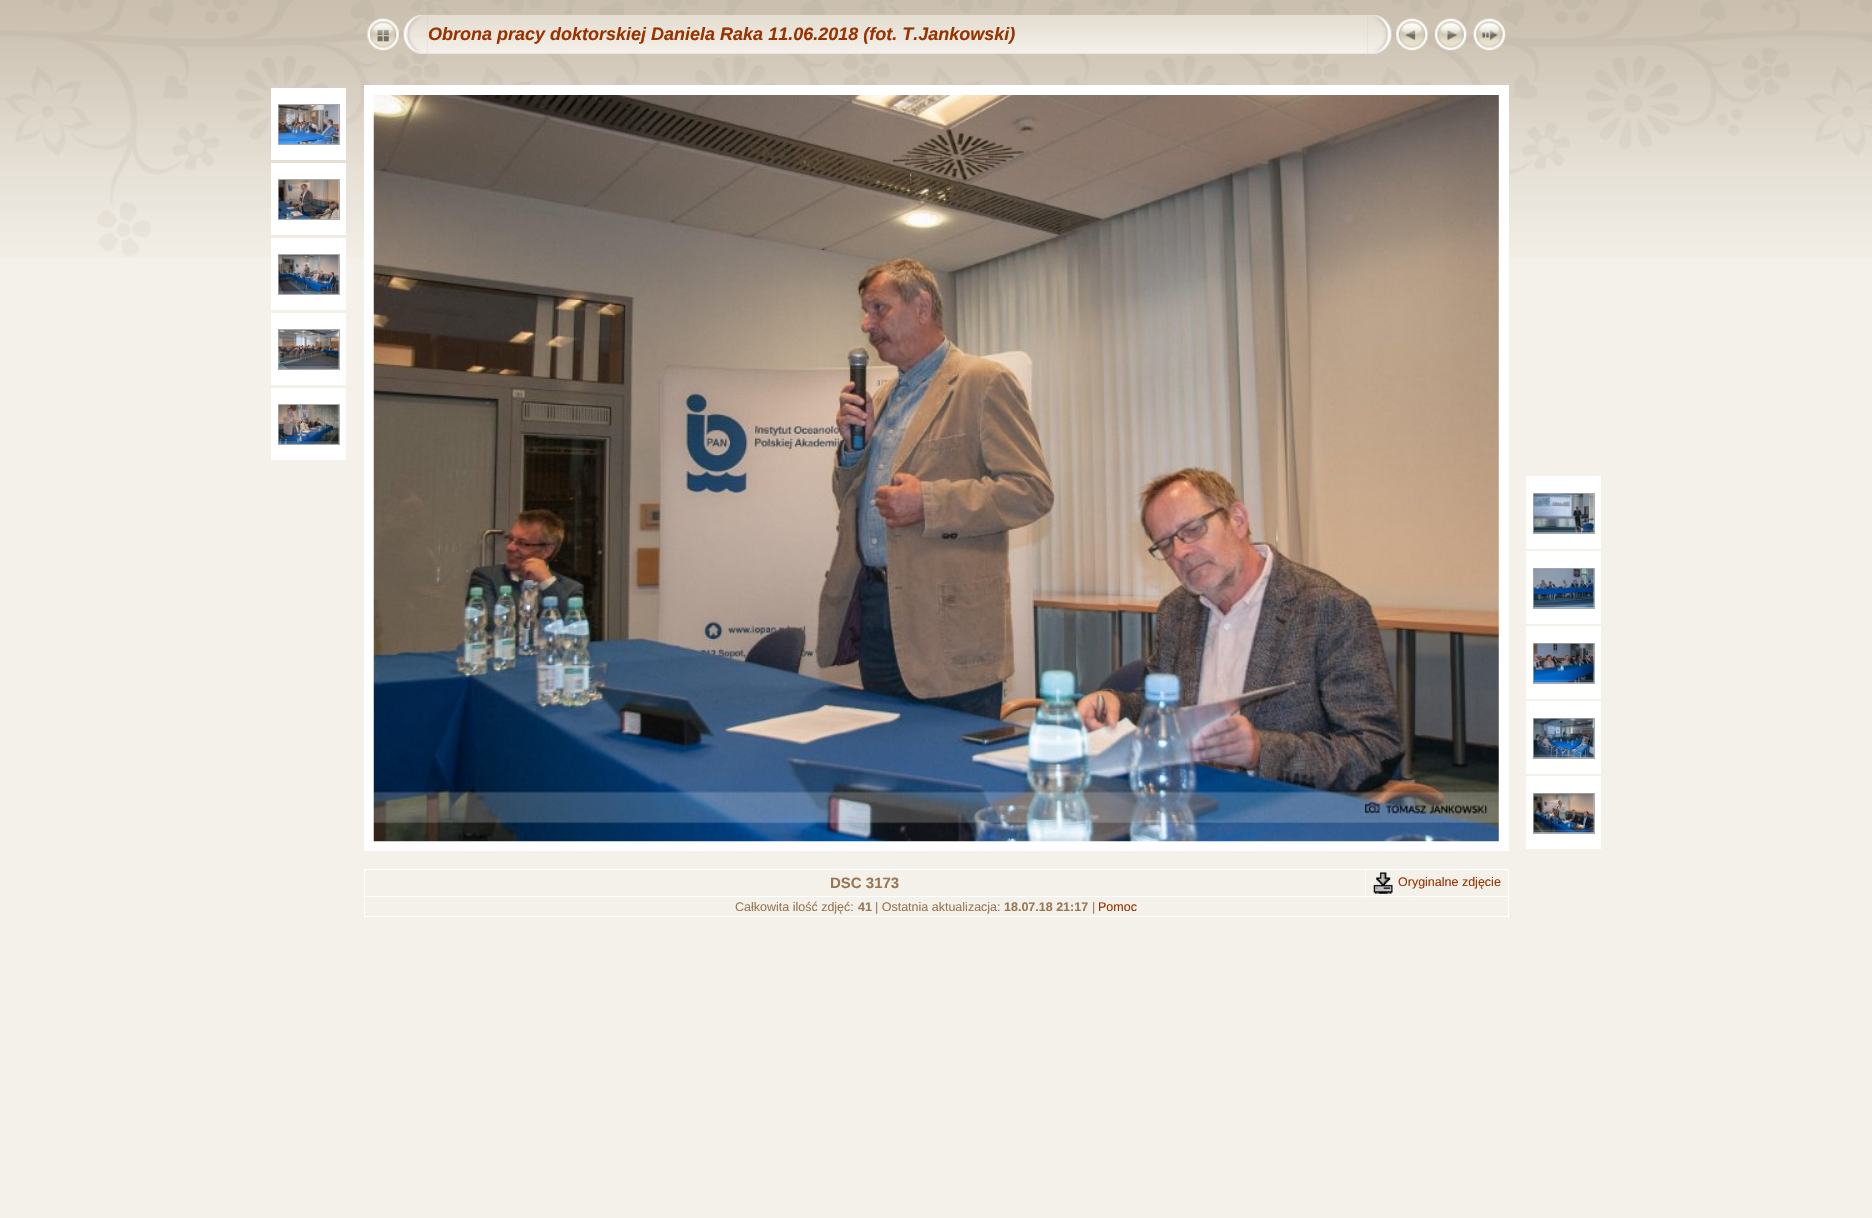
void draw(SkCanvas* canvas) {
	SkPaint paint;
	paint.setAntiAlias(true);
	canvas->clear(0xfff4f1ea);
	canvas->drawImageRect(SkImages::DeferredFromEncodedData(SkData::MakeFromFileName("img1.png")), SkRect::MakeXYWH(0, 0, 1872, 258), SkSamplingOptions());
	canvas->drawImageRect(SkImages::DeferredFromEncodedData(SkData::MakeFromFileName("img2.png")), SkRect::MakeXYWH(367, 18, 32, 33), SkSamplingOptions());
	canvas->drawImageRect(SkImages::DeferredFromEncodedData(SkData::MakeFromFileName("img4.png")), SkRect::MakeXYWH(427, 15, 941, 39), SkSamplingOptions());
	canvas->drawImageRect(SkImages::DeferredFromEncodedData(SkData::MakeFromFileName("img3.png")), SkRect::MakeXYWH(403, 15, 25, 39), SkSamplingOptions());
	SkFont f1(fontMgr->matchFamilyStyle("Liberation Sans", SkFontStyle::BoldItalic()), 18);
	f1.setSubpixel(true);
	paint.setColor(0xff993300);
	canvas->drawString("Obrona pracy doktorskiej Daniela Raka 11.06.2018 (fot. T.Jankowski)", 428, 40, f1, paint);
	canvas->drawImageRect(SkImages::DeferredFromEncodedData(SkData::MakeFromFileName("img5.png")), SkRect::MakeXYWH(1367, 15, 25, 39), SkSamplingOptions());
	canvas->drawImageRect(SkImages::DeferredFromEncodedData(SkData::MakeFromFileName("img6.png")), SkRect::MakeXYWH(1396, 18, 32, 33), SkSamplingOptions());
	canvas->drawImageRect(SkImages::DeferredFromEncodedData(SkData::MakeFromFileName("img7.png")), SkRect::MakeXYWH(1434, 18, 33, 33), SkSamplingOptions());
	canvas->drawImageRect(SkImages::DeferredFromEncodedData(SkData::MakeFromFileName("img8.png")), SkRect::MakeXYWH(1473, 18, 33, 33), SkSamplingOptions());
	paint.setColor(0xffffffff);
	canvas->drawRect(SkRect::MakeXYWH(271, 88, 75, 72), paint);
	paint.setStroke(true);
	paint.setStrokeWidth(1);
	paint.setColor(0xffaaaaaa);
	canvas->drawRect(SkRect::MakeXYWH(278.5, 104.5, 61, 40), paint);
	canvas->drawImageRect(SkImages::DeferredFromEncodedData(SkData::MakeFromFileName("img9.png")), SkRect::MakeXYWH(278, 105, 61, 39), SkSamplingOptions());
	paint.setStroke(false);
	paint.setColor(0xffffffff);
	canvas->drawRect(SkRect::MakeXYWH(271, 163, 75, 72), paint);
	paint.setStroke(true);
	paint.setColor(0xffaaaaaa);
	canvas->drawRect(SkRect::MakeXYWH(278.5, 179.5, 61, 40), paint);
	canvas->drawImageRect(SkImages::DeferredFromEncodedData(SkData::MakeFromFileName("img10.png")), SkRect::MakeXYWH(278, 180, 61, 39), SkSamplingOptions());
	paint.setStroke(false);
	paint.setColor(0xffffffff);
	canvas->drawRect(SkRect::MakeXYWH(271, 238, 75, 72), paint);
	paint.setStroke(true);
	paint.setColor(0xffaaaaaa);
	canvas->drawRect(SkRect::MakeXYWH(278.5, 254.5, 61, 40), paint);
	canvas->drawImageRect(SkImages::DeferredFromEncodedData(SkData::MakeFromFileName("img11.png")), SkRect::MakeXYWH(278, 255, 61, 39), SkSamplingOptions());
	paint.setStroke(false);
	paint.setColor(0xffffffff);
	canvas->drawRect(SkRect::MakeXYWH(271, 313, 75, 72), paint);
	paint.setStroke(true);
	paint.setColor(0xffaaaaaa);
	canvas->drawRect(SkRect::MakeXYWH(278.5, 329.5, 61, 40), paint);
	canvas->drawImageRect(SkImages::DeferredFromEncodedData(SkData::MakeFromFileName("img12.png")), SkRect::MakeXYWH(278, 330, 61, 39), SkSamplingOptions());
	paint.setStroke(false);
	paint.setColor(0xffffffff);
	canvas->drawRect(SkRect::MakeXYWH(271, 388, 75, 72), paint);
	paint.setStroke(true);
	paint.setColor(0xffaaaaaa);
	canvas->drawRect(SkRect::MakeXYWH(278.5, 404.5, 61, 40), paint);
	canvas->drawImageRect(SkImages::DeferredFromEncodedData(SkData::MakeFromFileName("img13.png")), SkRect::MakeXYWH(278, 405, 61, 39), SkSamplingOptions());
	paint.setStrokeWidth(10);
	paint.setColor(0xffffffff);
	canvas->drawRect(SkRect::MakeXYWH(369, 90, 1135, 756), paint);
	canvas->drawImageRect(SkImages::DeferredFromEncodedData(SkData::MakeFromFileName("img14.png")), SkRect::MakeXYWH(373, 95, 1126, 747), SkSamplingOptions());
	paint.setStroke(false);
	canvas->drawRect(SkRect::MakeXYWH(1526, 476, 75, 73), paint);
	paint.setStroke(true);
	paint.setStrokeWidth(1);
	paint.setColor(0xffaaaaaa);
	canvas->drawRect(SkRect::MakeXYWH(1533.5, 493.5, 61, 40), paint);
	canvas->drawImageRect(SkImages::DeferredFromEncodedData(SkData::MakeFromFileName("img15.png")), SkRect::MakeXYWH(1533, 493, 61, 40), SkSamplingOptions());
	paint.setStroke(false);
	paint.setColor(0xffffffff);
	canvas->drawRect(SkRect::MakeXYWH(1526, 551, 75, 73), paint);
	paint.setStroke(true);
	paint.setColor(0xffaaaaaa);
	canvas->drawRect(SkRect::MakeXYWH(1533.5, 568.5, 61, 40), paint);
	canvas->drawImageRect(SkImages::DeferredFromEncodedData(SkData::MakeFromFileName("img16.png")), SkRect::MakeXYWH(1533, 568, 61, 40), SkSamplingOptions());
	paint.setStroke(false);
	paint.setColor(0xffffffff);
	canvas->drawRect(SkRect::MakeXYWH(1526, 626, 75, 73), paint);
	paint.setStroke(true);
	paint.setColor(0xffaaaaaa);
	canvas->drawRect(SkRect::MakeXYWH(1533.5, 643.5, 61, 40), paint);
	canvas->drawImageRect(SkImages::DeferredFromEncodedData(SkData::MakeFromFileName("img17.png")), SkRect::MakeXYWH(1533, 643, 61, 40), SkSamplingOptions());
	paint.setStroke(false);
	paint.setColor(0xffffffff);
	canvas->drawRect(SkRect::MakeXYWH(1526, 701, 75, 73), paint);
	paint.setStroke(true);
	paint.setColor(0xffaaaaaa);
	canvas->drawRect(SkRect::MakeXYWH(1533.5, 718.5, 61, 40), paint);
	canvas->drawImageRect(SkImages::DeferredFromEncodedData(SkData::MakeFromFileName("img18.png")), SkRect::MakeXYWH(1533, 718, 61, 40), SkSamplingOptions());
	paint.setStroke(false);
	paint.setColor(0xffffffff);
	canvas->drawRect(SkRect::MakeXYWH(1526, 776, 75, 73), paint);
	paint.setStroke(true);
	paint.setColor(0xffaaaaaa);
	canvas->drawRect(SkRect::MakeXYWH(1533.5, 793.5, 61, 40), paint);
	canvas->drawImageRect(SkImages::DeferredFromEncodedData(SkData::MakeFromFileName("img19.png")), SkRect::MakeXYWH(1533, 793, 61, 40), SkSamplingOptions());
	paint.setStroke(false);
	paint.setColor(0xffffffff);
	canvas->drawRect(SkRect::MakeXYWH(364, 869, 1145, 1), paint);
	canvas->drawRect(SkRect::MakeXYWH(1508, 869, 1, 49), paint);
	canvas->drawRect(SkRect::MakeXYWH(364, 916, 1145, 1), paint);
	canvas->drawRect(SkRect::MakeXYWH(364, 869, 1, 49), paint);
	SkFont f2(fontMgr->matchFamilyStyle("Liberation Sans", SkFontStyle::Bold()), 15);
	f2.setSubpixel(true);
	paint.setColor(0xff997755);
	canvas->drawString("DSC 3173", 830, 888, f2, paint);
	paint.setColor(0xffffffff);
	canvas->drawRect(SkRect::MakeXYWH(364, 896, 1145, 1), paint);
	canvas->drawRect(SkRect::MakeXYWH(1365, 869, 1, 29), paint);
	canvas->drawImageRect(SkImages::DeferredFromEncodedData(SkData::MakeFromFileName("img20.png")), SkRect::MakeXYWH(1373, 872, 20, 22), SkSamplingOptions());
	SkFont f3(fontMgr->matchFamilyStyle("Liberation Sans", SkFontStyle::Normal()), 12.5);
	f3.setSubpixel(true);
	paint.setColor(0xff993300);
	canvas->drawString("Oryginalne zdjęcie", 1398, 886, f3, paint);
	paint.setColor(0xff997755);
	canvas->drawString("Całkowita ilość zdjęć:", 735, 911, f3, paint);
	SkFont f4(fontMgr->matchFamilyStyle("Liberation Sans", SkFontStyle::Bold()), 12.5);
	f4.setSubpixel(true);
	canvas->drawString("41", 858, 911, f4, paint);
	canvas->drawString("| Ostatnia aktualizacja:", 875, 911, f3, paint);
	canvas->drawString("18.07.18 21:17", 1004, 911, f4, paint);
	canvas->drawString("|", 1092, 911, f3, paint);
	paint.setColor(0xff993300);
	canvas->drawString("Pomoc", 1098, 911, f3, paint);
}
